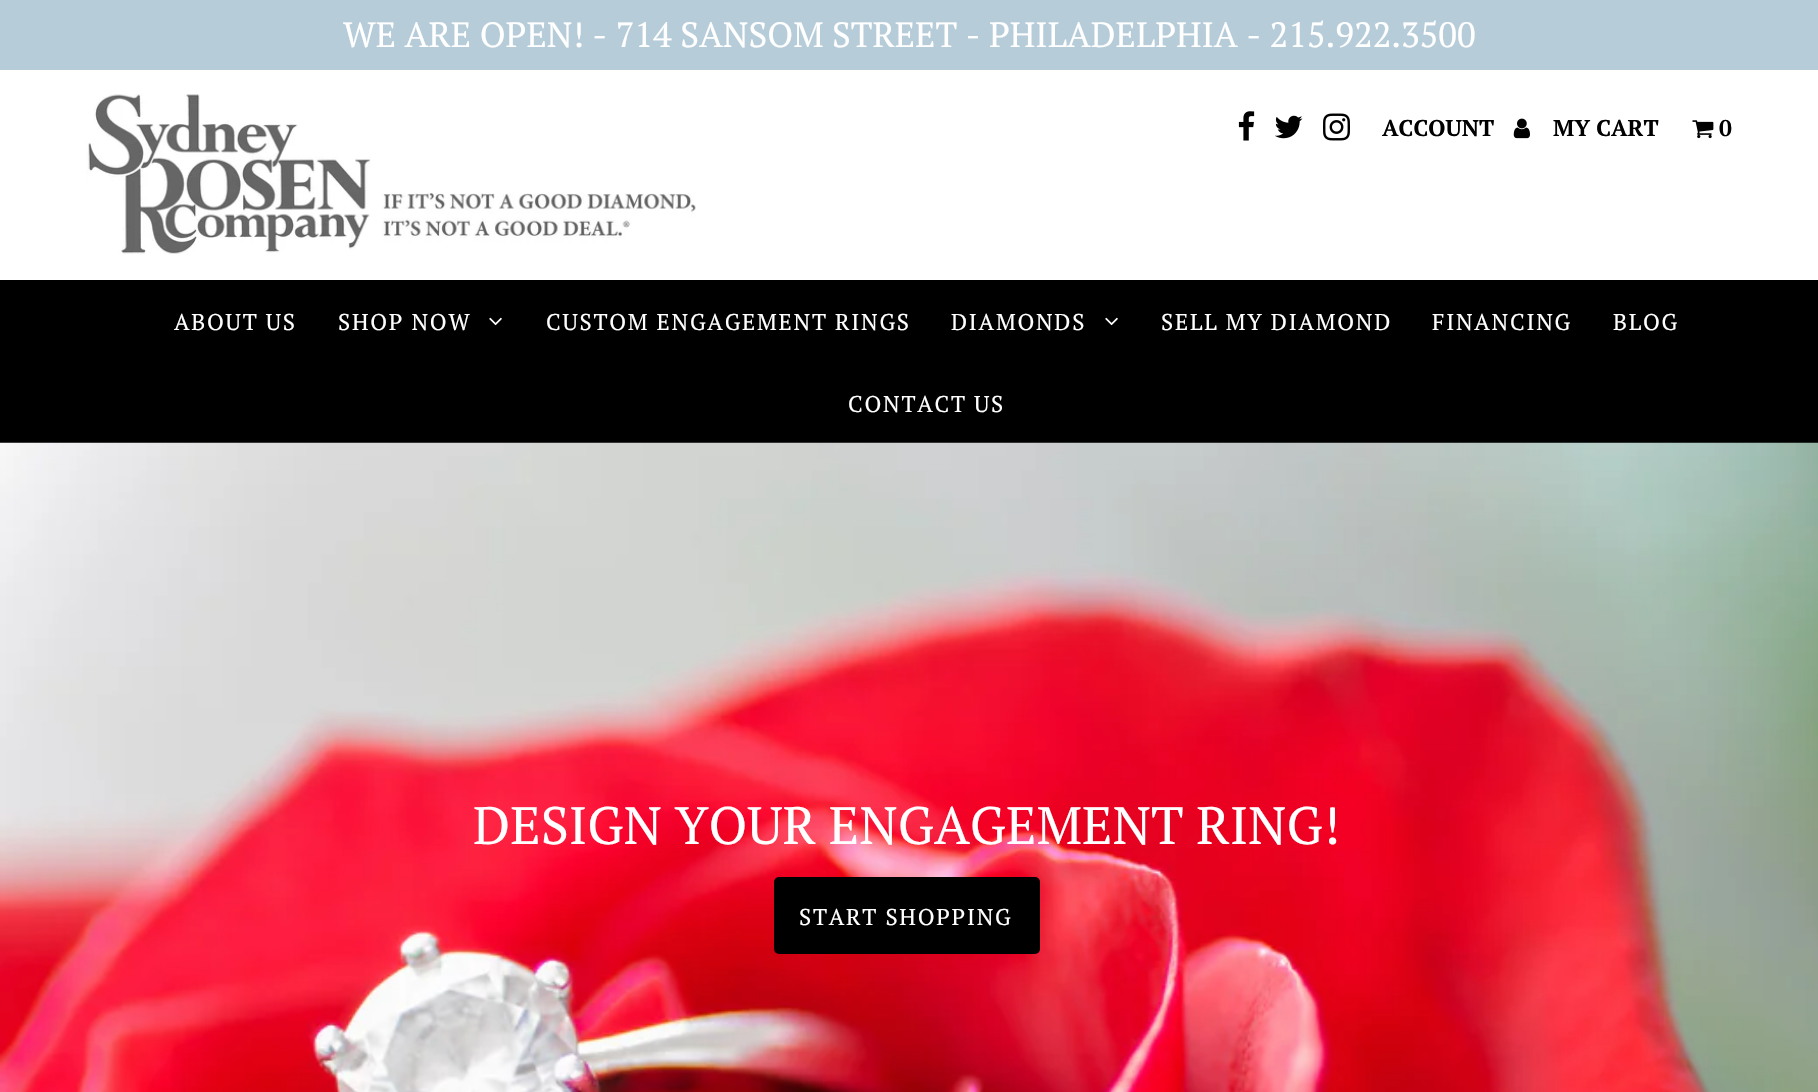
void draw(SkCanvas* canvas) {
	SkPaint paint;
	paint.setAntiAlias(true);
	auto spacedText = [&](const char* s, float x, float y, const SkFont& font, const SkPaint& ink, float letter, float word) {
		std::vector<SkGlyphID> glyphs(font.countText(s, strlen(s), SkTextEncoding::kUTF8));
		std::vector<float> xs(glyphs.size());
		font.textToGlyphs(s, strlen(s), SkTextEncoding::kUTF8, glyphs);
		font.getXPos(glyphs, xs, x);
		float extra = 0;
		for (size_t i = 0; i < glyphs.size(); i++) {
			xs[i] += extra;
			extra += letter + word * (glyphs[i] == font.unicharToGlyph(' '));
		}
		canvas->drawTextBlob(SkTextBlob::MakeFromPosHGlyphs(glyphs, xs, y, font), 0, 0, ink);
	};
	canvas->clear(0xffffffff);
	paint.setColor(0xffb7ccd9);
	canvas->drawRect(SkRect::MakeXYWH(0, 0, 1818, 70), paint);
	SkFont f1(fontMgr->matchFamilyStyle("PT Serif", SkFontStyle::Normal()), 35);
	f1.setSubpixel(true);
	paint.setColor(0xffffffff);
	canvas->drawString("WE ARE OPEN! - 714 SANSOM STREET - PHILADELPHIA - 215.922.3500", 343, 47, f1, paint);
	canvas->drawImageRect(SkImages::DeferredFromEncodedData(SkData::MakeFromFileName("img1.png")), SkRect::MakeXYWH(86, 94, 610, 160), SkSamplingOptions());
	canvas->drawImageRect(SkImages::DeferredFromEncodedData(SkData::MakeFromFileName("img2.png")), SkRect::MakeXYWH(1238, 111, 17, 30), SkSamplingOptions());
	canvas->drawImageRect(SkImages::DeferredFromEncodedData(SkData::MakeFromFileName("img3.png")), SkRect::MakeXYWH(1275, 115, 28, 24), SkSamplingOptions());
	canvas->drawImageRect(SkImages::DeferredFromEncodedData(SkData::MakeFromFileName("img4.png")), SkRect::MakeXYWH(1323, 113, 27, 28), SkSamplingOptions());
	SkFont f2(fontMgr->matchFamilyStyle("PT Serif", SkFontStyle::Bold()), 22.75);
	f2.setSubpixel(true);
	paint.setColor(0xff000000);
	canvas->drawString("ACCOUNT", 1382, 136, f2, paint);
	canvas->drawImageRect(SkImages::DeferredFromEncodedData(SkData::MakeFromFileName("img5.png")), SkRect::MakeXYWH(1513, 118, 17, 21), SkSamplingOptions());
	canvas->drawString("MY CART", 1553, 136, f2, paint);
	canvas->drawImageRect(SkImages::DeferredFromEncodedData(SkData::MakeFromFileName("img6.png")), SkRect::MakeXYWH(1692, 120, 22, 19), SkSamplingOptions());
	canvas->drawString("0", 1719, 136, f2, paint);
	canvas->drawRect(SkRect::MakeXYWH(0, 280, 1818, 163), paint);
	SkFont f3(fontMgr->matchFamilyStyle("PT Serif", SkFontStyle::Normal()), 22.75);
	f3.setSubpixel(true);
	paint.setColor(0xffffffff);
	spacedText("ABOUT US", 174, 330, f3, paint, 1.75, 0);
	spacedText("SHOP NOW", 338, 330, f3, paint, 1.75, 0);
	canvas->drawImageRect(SkImages::DeferredFromEncodedData(SkData::MakeFromFileName("img7.png")), SkRect::MakeXYWH(489, 317, 13, 9), SkSamplingOptions());
	spacedText("CUSTOM ENGAGEMENT RINGS", 546, 330, f3, paint, 1.75, 0);
	spacedText("DIAMONDS", 951, 330, f3, paint, 1.75, 0);
	canvas->drawImageRect(SkImages::DeferredFromEncodedData(SkData::MakeFromFileName("img7.png")), SkRect::MakeXYWH(1105, 317, 13, 9), SkSamplingOptions());
	spacedText("SELL MY DIAMOND", 1161, 330, f3, paint, 1.75, 0);
	spacedText("FINANCING", 1432, 330, f3, paint, 1.75, 0);
	spacedText("BLOG", 1613, 330, f3, paint, 1.75, 0);
	spacedText("CONTACT US", 848, 412, f3, paint, 1.75, 0);
	canvas->drawImageRect(SkImages::DeferredFromEncodedData(SkData::MakeFromFileName("img8.png")), SkRect::MakeXYWH(0, 442, 1818, 650), SkSamplingOptions());
	SkFont f4(fontMgr->matchFamilyStyle("PT Serif", SkFontStyle::Normal()), 52.5);
	f4.setSubpixel(true);
	canvas->drawString("DESIGN YOUR ENGAGEMENT RING!", 473, 844, f4, paint);
	paint.setColor(0xff000000);
	canvas->drawRoundRect(SkRect::MakeXYWH(774, 877, 266, 77), 5, 5, paint);
	paint.setColor(0xffffffff);
	spacedText("START SHOPPING", 799, 925, f3, paint, 1.75, 0);
}
